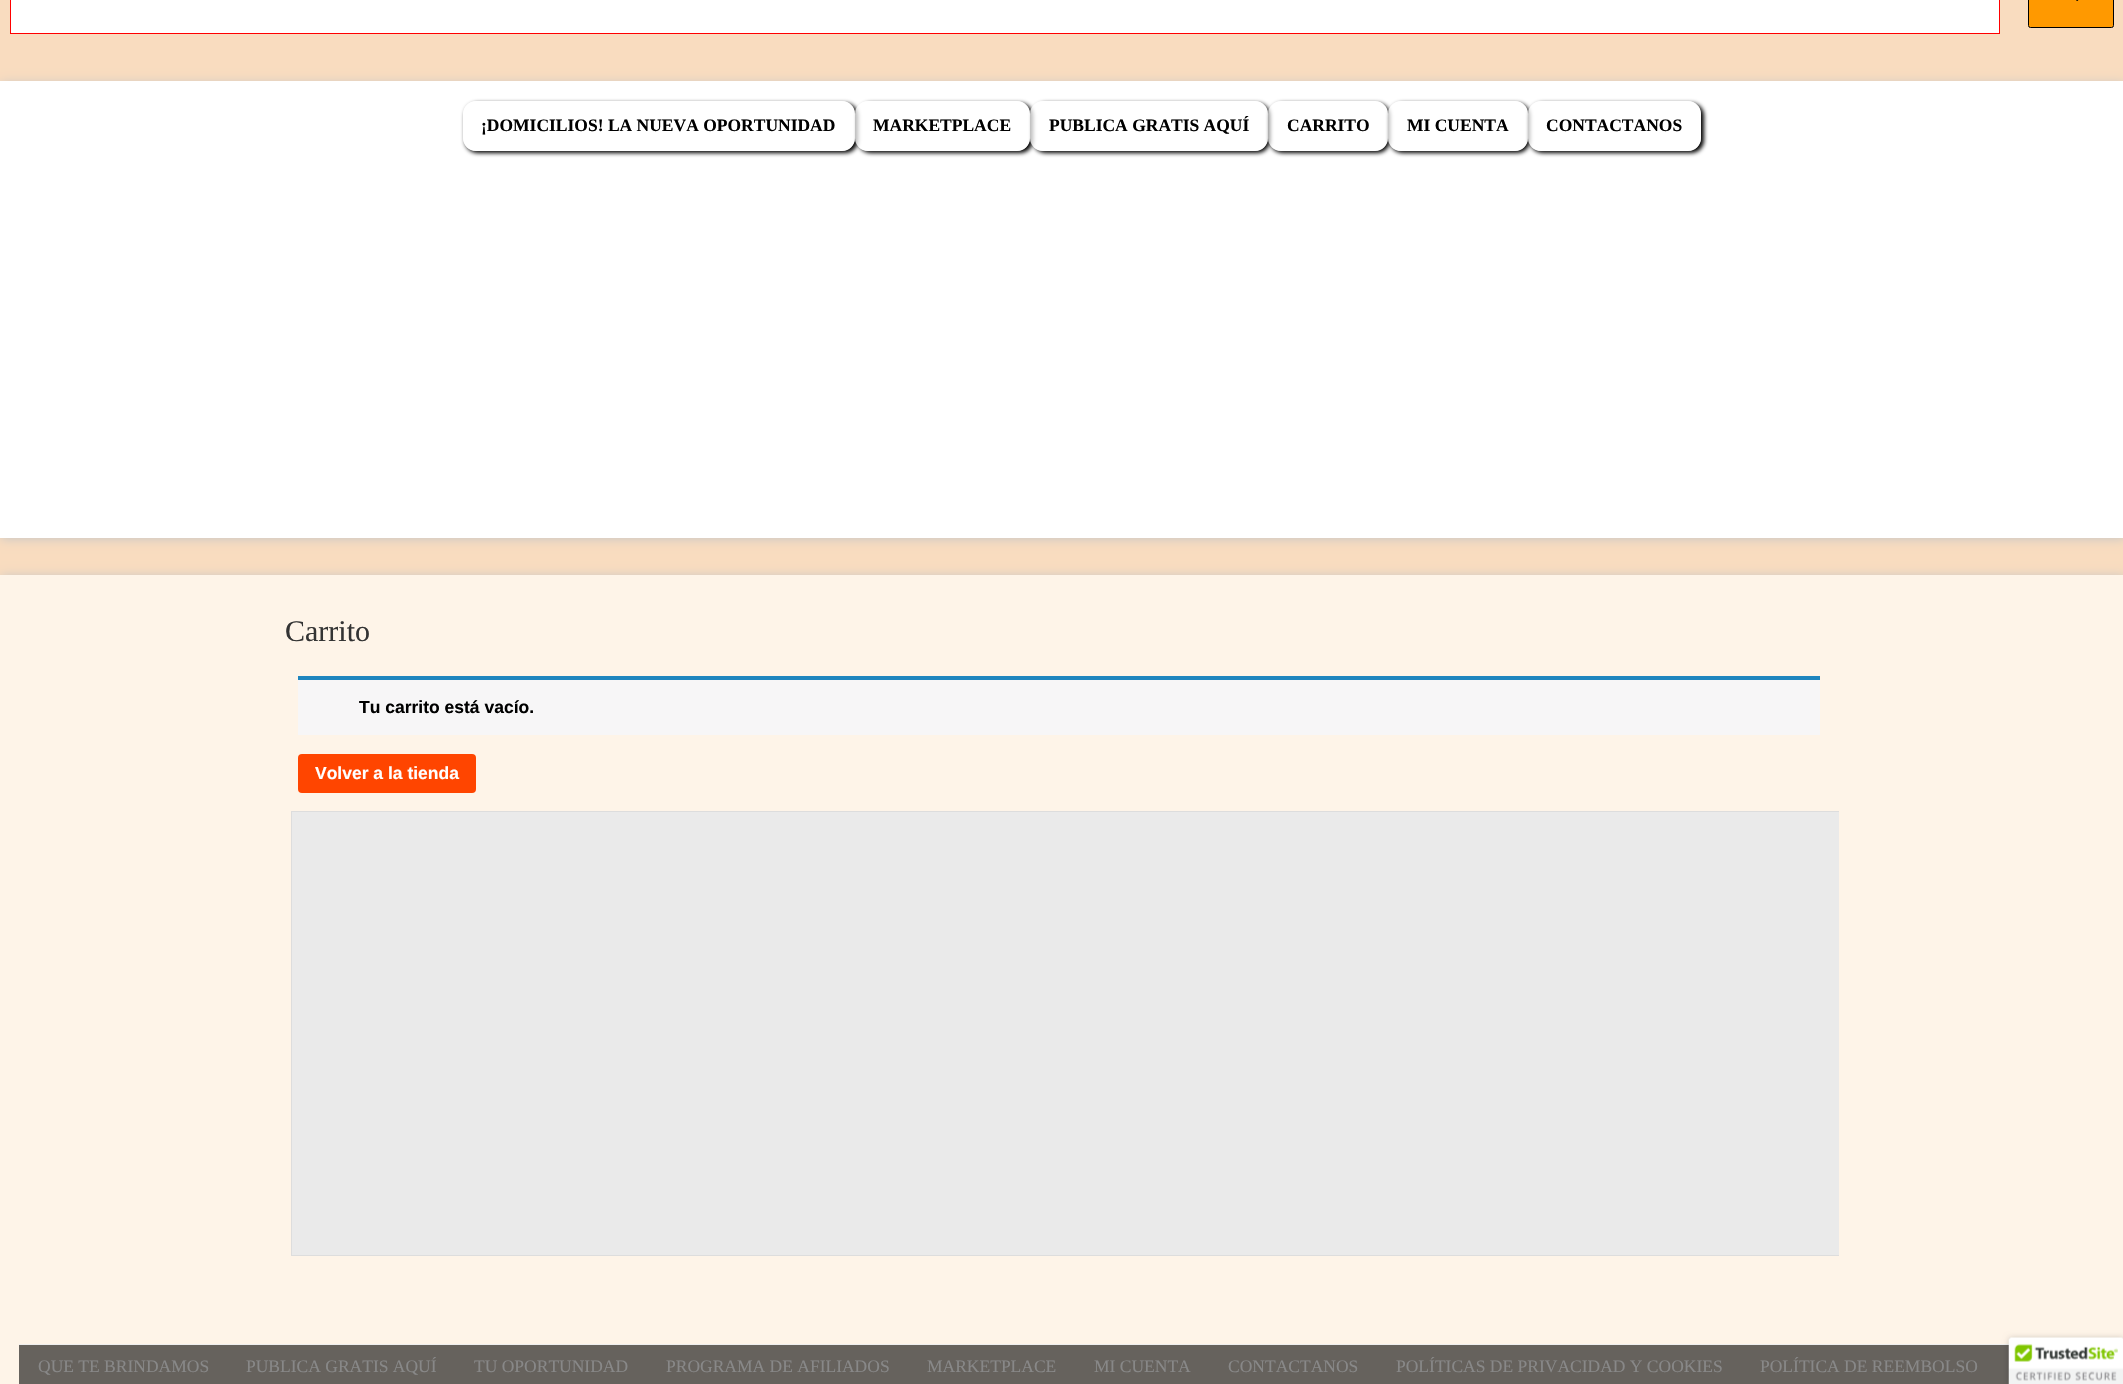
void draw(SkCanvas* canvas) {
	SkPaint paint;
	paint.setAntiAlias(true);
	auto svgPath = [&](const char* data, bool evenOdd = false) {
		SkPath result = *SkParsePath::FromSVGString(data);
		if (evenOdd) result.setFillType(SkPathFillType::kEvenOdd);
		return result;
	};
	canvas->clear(0xfff9dcbf);
	paint.setColor(0xffffffff);
	canvas->drawRect(SkRect::MakeXYWH(10.5, -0.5, 1989, 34), paint);
	paint.setStroke(true);
	paint.setStrokeWidth(1);
	paint.setColor(0xffff0000);
	canvas->drawRect(SkRect::MakeXYWH(10.5, -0.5, 1989, 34), paint);
	paint.setStroke(false);
	paint.setColor(0xffff9900);
	canvas->drawRoundRect(SkRect::MakeXYWH(2028.5, -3.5, 85, 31), 2, 2, paint);
	paint.setStroke(true);
	paint.setColor(0xff000000);
	canvas->drawRoundRect(SkRect::MakeXYWH(2028.5, -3.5, 85, 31), 2, 2, paint);
	canvas->drawImageRect(SkImages::DeferredFromEncodedData(SkData::MakeFromFileName("img1.png")), SkRect::MakeXYWH(2076, 0, 3, 1), SkSamplingOptions());
	paint.setStroke(false);
	paint.setColor(0xffc7c7c7);
	paint.setMaskFilter(SkMaskFilter::MakeBlur(kNormal_SkBlurStyle, 5));
	canvas->drawRect(SkRect::MakeXYWH(1, 83, 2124, 456), paint);
	paint.setMaskFilter(nullptr);
	paint.setColor(0xffffffff);
	canvas->drawRect(SkRect::MakeXYWH(0, 81, 2123, 457), paint);
	canvas->save();
	canvas->clipPath(svgPath("M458 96H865V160H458ZM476 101H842C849 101 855 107 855 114V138C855 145 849 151 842 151H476C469 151 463 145 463 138V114C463 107 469 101 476 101Z", true), true);
	paint.setColor(0xff000000);
	paint.setMaskFilter(SkMaskFilter::MakeBlur(kNormal_SkBlurStyle, 2));
	canvas->drawRoundRect(SkRect::MakeXYWH(465, 103, 393, 50), 13, 13, paint);
	paint.setMaskFilter(nullptr);
	canvas->restore();
	paint.setColor(0xbaffffff);
	canvas->drawRoundRect(SkRect::MakeXYWH(463, 101, 392, 50), 13, 13, paint);
	SkFont f1(fontMgr->matchFamilyStyle("Liberation Serif", SkFontStyle::Bold()), 17.5);
	f1.setSubpixel(true);
	paint.setColor(0xff000000);
	canvas->drawString("¡DOMICILIOS! LA NUEVA OPORTUNIDAD", 481, 131, f1, paint);
	canvas->save();
	canvas->clipPath(svgPath("M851 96H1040V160H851ZM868 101H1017C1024 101 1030 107 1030 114V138C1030 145 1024 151 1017 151H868C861 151 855 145 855 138V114C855 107 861 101 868 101Z", true), true);
	paint.setMaskFilter(SkMaskFilter::MakeBlur(kNormal_SkBlurStyle, 2));
	canvas->drawRoundRect(SkRect::MakeXYWH(858, 103, 175, 50), 13, 13, paint);
	paint.setMaskFilter(nullptr);
	canvas->restore();
	paint.setColor(0xbaffffff);
	canvas->drawRoundRect(SkRect::MakeXYWH(855, 101, 175, 50), 13, 13, paint);
	paint.setColor(0xff000000);
	canvas->drawString("MARKETPLACE", 873, 131, f1, paint);
	canvas->save();
	canvas->clipPath(svgPath("M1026 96H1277V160H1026ZM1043 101H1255C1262 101 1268 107 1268 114V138C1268 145 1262 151 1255 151H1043C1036 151 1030 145 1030 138V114C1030 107 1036 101 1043 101Z", true), true);
	paint.setMaskFilter(SkMaskFilter::MakeBlur(kNormal_SkBlurStyle, 2));
	canvas->drawRoundRect(SkRect::MakeXYWH(1033, 103, 237, 50), 13, 13, paint);
	paint.setMaskFilter(nullptr);
	canvas->restore();
	paint.setColor(0xbaffffff);
	canvas->drawRoundRect(SkRect::MakeXYWH(1030, 101, 238, 50), 13, 13, paint);
	paint.setColor(0xff000000);
	canvas->drawString("PUBLICA GRATIS AQUÍ", 1049, 131, f1, paint);
	canvas->save();
	canvas->clipPath(svgPath("M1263 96H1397V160H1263ZM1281 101H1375C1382 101 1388 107 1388 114V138C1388 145 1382 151 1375 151H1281C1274 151 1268 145 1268 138V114C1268 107 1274 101 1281 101Z", true), true);
	paint.setMaskFilter(SkMaskFilter::MakeBlur(kNormal_SkBlurStyle, 2));
	canvas->drawRoundRect(SkRect::MakeXYWH(1270, 103, 120, 50), 13, 13, paint);
	paint.setMaskFilter(nullptr);
	canvas->restore();
	paint.setColor(0x94ffffff);
	canvas->drawRoundRect(SkRect::MakeXYWH(1268, 101, 120, 50), 13, 13, paint);
	paint.setColor(0xff000000);
	canvas->drawString("CARRITO", 1287, 131, f1, paint);
	canvas->save();
	canvas->clipPath(svgPath("M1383 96H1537V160H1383ZM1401 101H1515C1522 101 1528 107 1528 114V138C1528 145 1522 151 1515 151H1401C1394 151 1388 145 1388 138V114C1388 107 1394 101 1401 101Z", true), true);
	paint.setMaskFilter(SkMaskFilter::MakeBlur(kNormal_SkBlurStyle, 2));
	canvas->drawRoundRect(SkRect::MakeXYWH(1390, 103, 140, 50), 13, 13, paint);
	paint.setMaskFilter(nullptr);
	canvas->restore();
	paint.setColor(0xbaffffff);
	canvas->drawRoundRect(SkRect::MakeXYWH(1388, 101, 140, 50), 13, 13, paint);
	paint.setColor(0xff000000);
	canvas->drawString("MI CUENTA", 1407, 131, f1, paint);
	canvas->save();
	canvas->clipPath(svgPath("M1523 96H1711V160H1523ZM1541 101H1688C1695 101 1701 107 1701 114V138C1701 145 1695 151 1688 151H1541C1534 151 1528 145 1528 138V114C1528 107 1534 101 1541 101Z", true), true);
	paint.setMaskFilter(SkMaskFilter::MakeBlur(kNormal_SkBlurStyle, 2));
	canvas->drawRoundRect(SkRect::MakeXYWH(1530, 103, 174, 50), 13, 13, paint);
	paint.setMaskFilter(nullptr);
	canvas->restore();
	paint.setColor(0xbaffffff);
	canvas->drawRoundRect(SkRect::MakeXYWH(1528, 101, 173, 50), 13, 13, paint);
	paint.setColor(0xff000000);
	canvas->drawString("CONTACTANOS", 1546, 131, f1, paint);
	paint.setColor(0xffc7c7c7);
	paint.setMaskFilter(SkMaskFilter::MakeBlur(kNormal_SkBlurStyle, 5));
	canvas->drawRect(SkRect::MakeXYWH(1, 576, 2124, 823), paint);
	paint.setMaskFilter(nullptr);
	paint.setColor(0xfffef4e8);
	canvas->drawRect(SkRect::MakeXYWH(0, 575, 2123, 809), paint);
	SkFont f2(fontMgr->matchFamilyStyle("Liberation Serif", SkFontStyle::Normal()), 30);
	f2.setSubpixel(true);
	paint.setColor(0xff333333);
	canvas->drawString("Carrito", 285, 641, f2, paint);
	paint.setColor(0xfff7f6f7);
	canvas->drawRect(SkRect::MakeXYWH(298, 680, 1522, 55), paint);
	paint.setColor(0xff1e85be);
	canvas->drawRect(SkRect::MakeXYWH(298, 676, 1522, 4), paint);
	SkFont f3(fontMgr->matchFamilyStyle("Liberation Sans", SkFontStyle::Bold()), 17.5);
	f3.setSubpixel(true);
	paint.setColor(0xff000000);
	canvas->drawString("Tu carrito está vacío.", 359, 713, f3, paint);
	paint.setColor(0xffff4500);
	canvas->drawRoundRect(SkRect::MakeXYWH(298, 754, 178, 39), 4, 4, paint);
	paint.setColor(0xffffffff);
	canvas->drawString("Volver a la tienda", 315, 779, f3, paint);
	paint.setColor(0xffeaeaea);
	canvas->drawRect(SkRect::MakeXYWH(292, 812, 1547, 443), paint);
	canvas->save();
	canvas->clipRect(SkRect::MakeXYWH(285, 594, 1554, 737));
	paint.setStroke(true);
	paint.setColor(0xffdddddd);
	canvas->drawRect(SkRect::MakeXYWH(291.5, 811.5, 1553, 444), paint);
	canvas->restore();
	paint.setStroke(false);
	paint.setColor(0xff66625d);
	canvas->drawRect(SkRect::MakeXYWH(19, 1345, 1990, 39), paint);
	paint.setColor(0xffeeeeee);
	canvas->drawRect(SkRect::MakeXYWH(19, 1344, 1990, 1), paint);
	SkFont f4(fontMgr->matchFamilyStyle("Liberation Serif", SkFontStyle::Normal()), 17.5);
	f4.setSubpixel(true);
	paint.setColor(0xff888888);
	canvas->drawString("QUE TE BRINDAMOS", 38, 1372, f4, paint);
	canvas->drawString("PUBLICA GRATIS AQUÍ", 246, 1372, f4, paint);
	canvas->drawString("TU OPORTUNIDAD", 474, 1372, f4, paint);
	canvas->drawString("PROGRAMA DE AFILIADOS", 666, 1372, f4, paint);
	canvas->drawString("MARKETPLACE", 927, 1372, f4, paint);
	canvas->drawString("MI CUENTA", 1094, 1372, f4, paint);
	canvas->drawString("CONTACTANOS", 1228, 1372, f4, paint);
	canvas->drawString("POLÍTICAS DE PRIVACIDAD Y COOKIES", 1396, 1372, f4, paint);
	canvas->drawString("POLÍTICA DE REEMBOLSO", 1760, 1372, f4, paint);
	paint.setColor(0x33000000);
	paint.setMaskFilter(SkMaskFilter::MakeBlur(kNormal_SkBlurStyle, 3));
	canvas->drawRoundRect(SkRect::MakeXYWH(2009, 1338, 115, 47), 2.5, 2.5, paint);
	paint.setMaskFilter(nullptr);
	canvas->drawImageRect(SkImages::DeferredFromEncodedData(SkData::MakeFromFileName("img2.png")), SkRect::MakeXYWH(2008, 1337, 115, 47), SkSamplingOptions());
}
